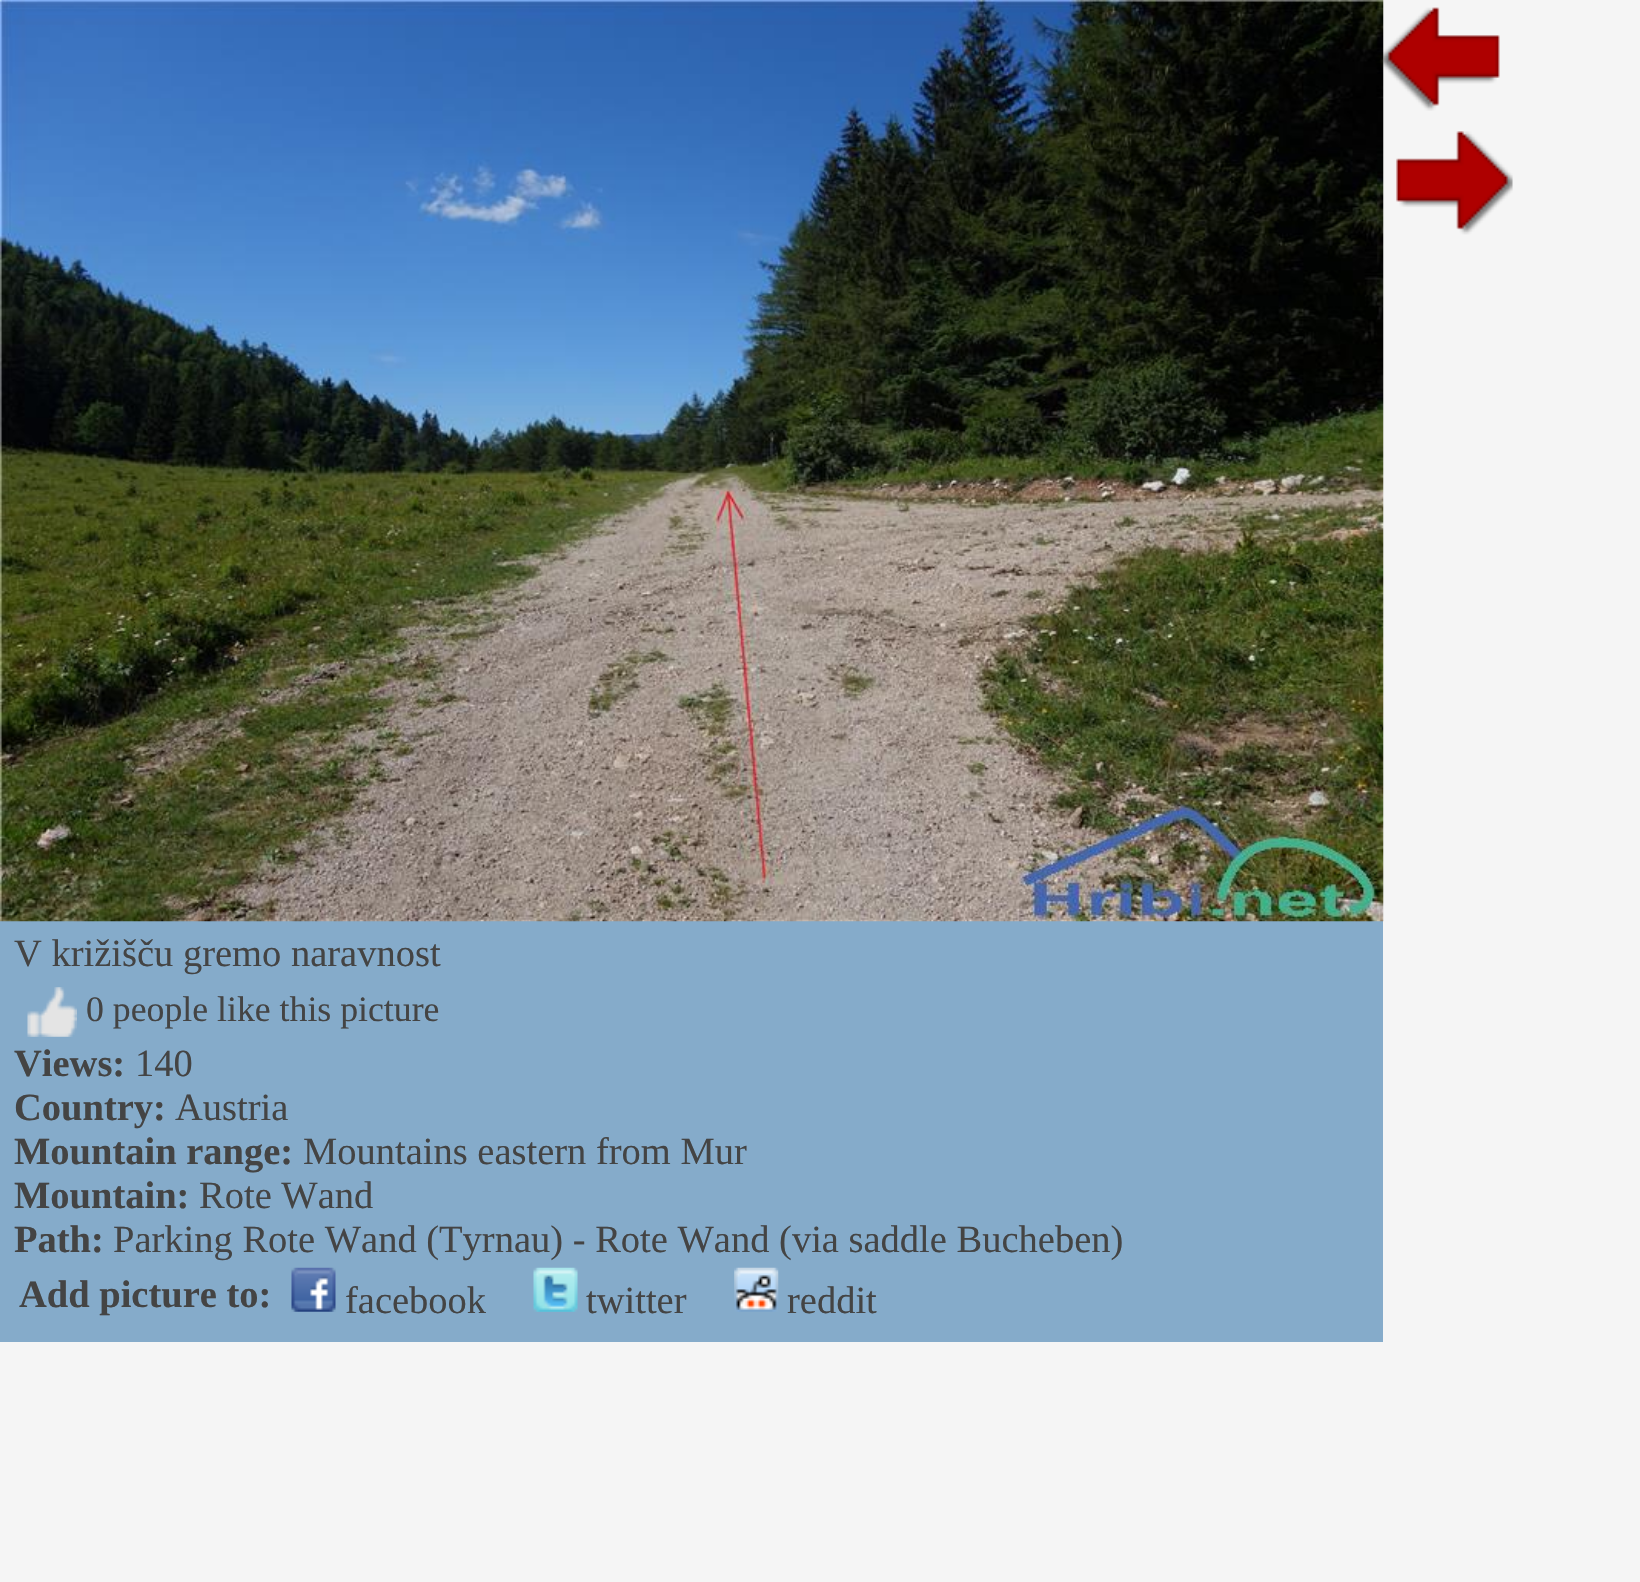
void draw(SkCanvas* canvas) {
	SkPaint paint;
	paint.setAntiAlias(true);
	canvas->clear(0xfff5f5f5);
	paint.setColor(0xff85abca);
	canvas->drawRect(SkRect::MakeXYWH(0, 921, 1383, 421), paint);
	canvas->drawImageRect(SkImages::DeferredFromEncodedData(SkData::MakeFromFileName("img3.png")), SkRect::MakeXYWH(0, 0, 1384, 922), SkSamplingOptions());
	canvas->drawImageRect(SkImages::DeferredFromEncodedData(SkData::MakeFromFileName("img1.png")), SkRect::MakeXYWH(1383, 7, 117, 104), SkSamplingOptions());
	canvas->drawImageRect(SkImages::DeferredFromEncodedData(SkData::MakeFromFileName("img2.png")), SkRect::MakeXYWH(1396, 131, 117, 104), SkSamplingOptions());
	SkFont f1(fontMgr->matchFamilyStyle("Liberation Serif", SkFontStyle::Normal()), 38.5);
	f1.setSubpixel(true);
	paint.setColor(0xff444444);
	canvas->drawString("V križišču gremo naravnost", 14, 966, f1, paint);
	canvas->drawImageRect(SkImages::DeferredFromEncodedData(SkData::MakeFromFileName("img4.png")), SkRect::MakeXYWH(27, 987, 50, 50), SkSamplingOptions());
	SkFont f2(fontMgr->matchFamilyStyle("Liberation Serif", SkFontStyle::Normal()), 35.75);
	f2.setSubpixel(true);
	canvas->drawString("0 people like this picture", 86, 1021, f2, paint);
	SkFont f3(fontMgr->matchFamilyStyle("Liberation Serif", SkFontStyle::Bold()), 38.5);
	f3.setSubpixel(true);
	canvas->drawString("Views:", 14, 1076, f3, paint);
	canvas->drawString("140", 135, 1076, f1, paint);
	canvas->drawString("Country:", 14, 1120, f3, paint);
	canvas->drawString("Austria", 175, 1120, f1, paint);
	canvas->drawString("Mountain range:", 14, 1164, f3, paint);
	canvas->drawString("Mountains eastern from Mur", 303, 1164, f1, paint);
	canvas->drawString("Mountain:", 14, 1208, f3, paint);
	canvas->drawString("Rote Wand", 199, 1208, f1, paint);
	canvas->drawString("Path:", 14, 1252, f3, paint);
	canvas->drawString("Parking Rote Wand (Tyrnau) - Rote Wand (via saddle Bucheben)", 113, 1252, f1, paint);
	canvas->drawString("Add picture to:", 19, 1307, f3, paint);
	canvas->drawImageRect(SkImages::DeferredFromEncodedData(SkData::MakeFromFileName("img5.png")), SkRect::MakeXYWH(291, 1267, 45, 45), SkSamplingOptions());
	canvas->drawString("facebook", 345, 1313, f1, paint);
	canvas->drawImageRect(SkImages::DeferredFromEncodedData(SkData::MakeFromFileName("img6.png")), SkRect::MakeXYWH(533, 1267, 45, 45), SkSamplingOptions());
	canvas->drawString("twitter", 586, 1313, f1, paint);
	canvas->drawImageRect(SkImages::DeferredFromEncodedData(SkData::MakeFromFileName("img7.png")), SkRect::MakeXYWH(734, 1267, 45, 45), SkSamplingOptions());
	canvas->drawString("reddit", 787, 1313, f1, paint);
}
